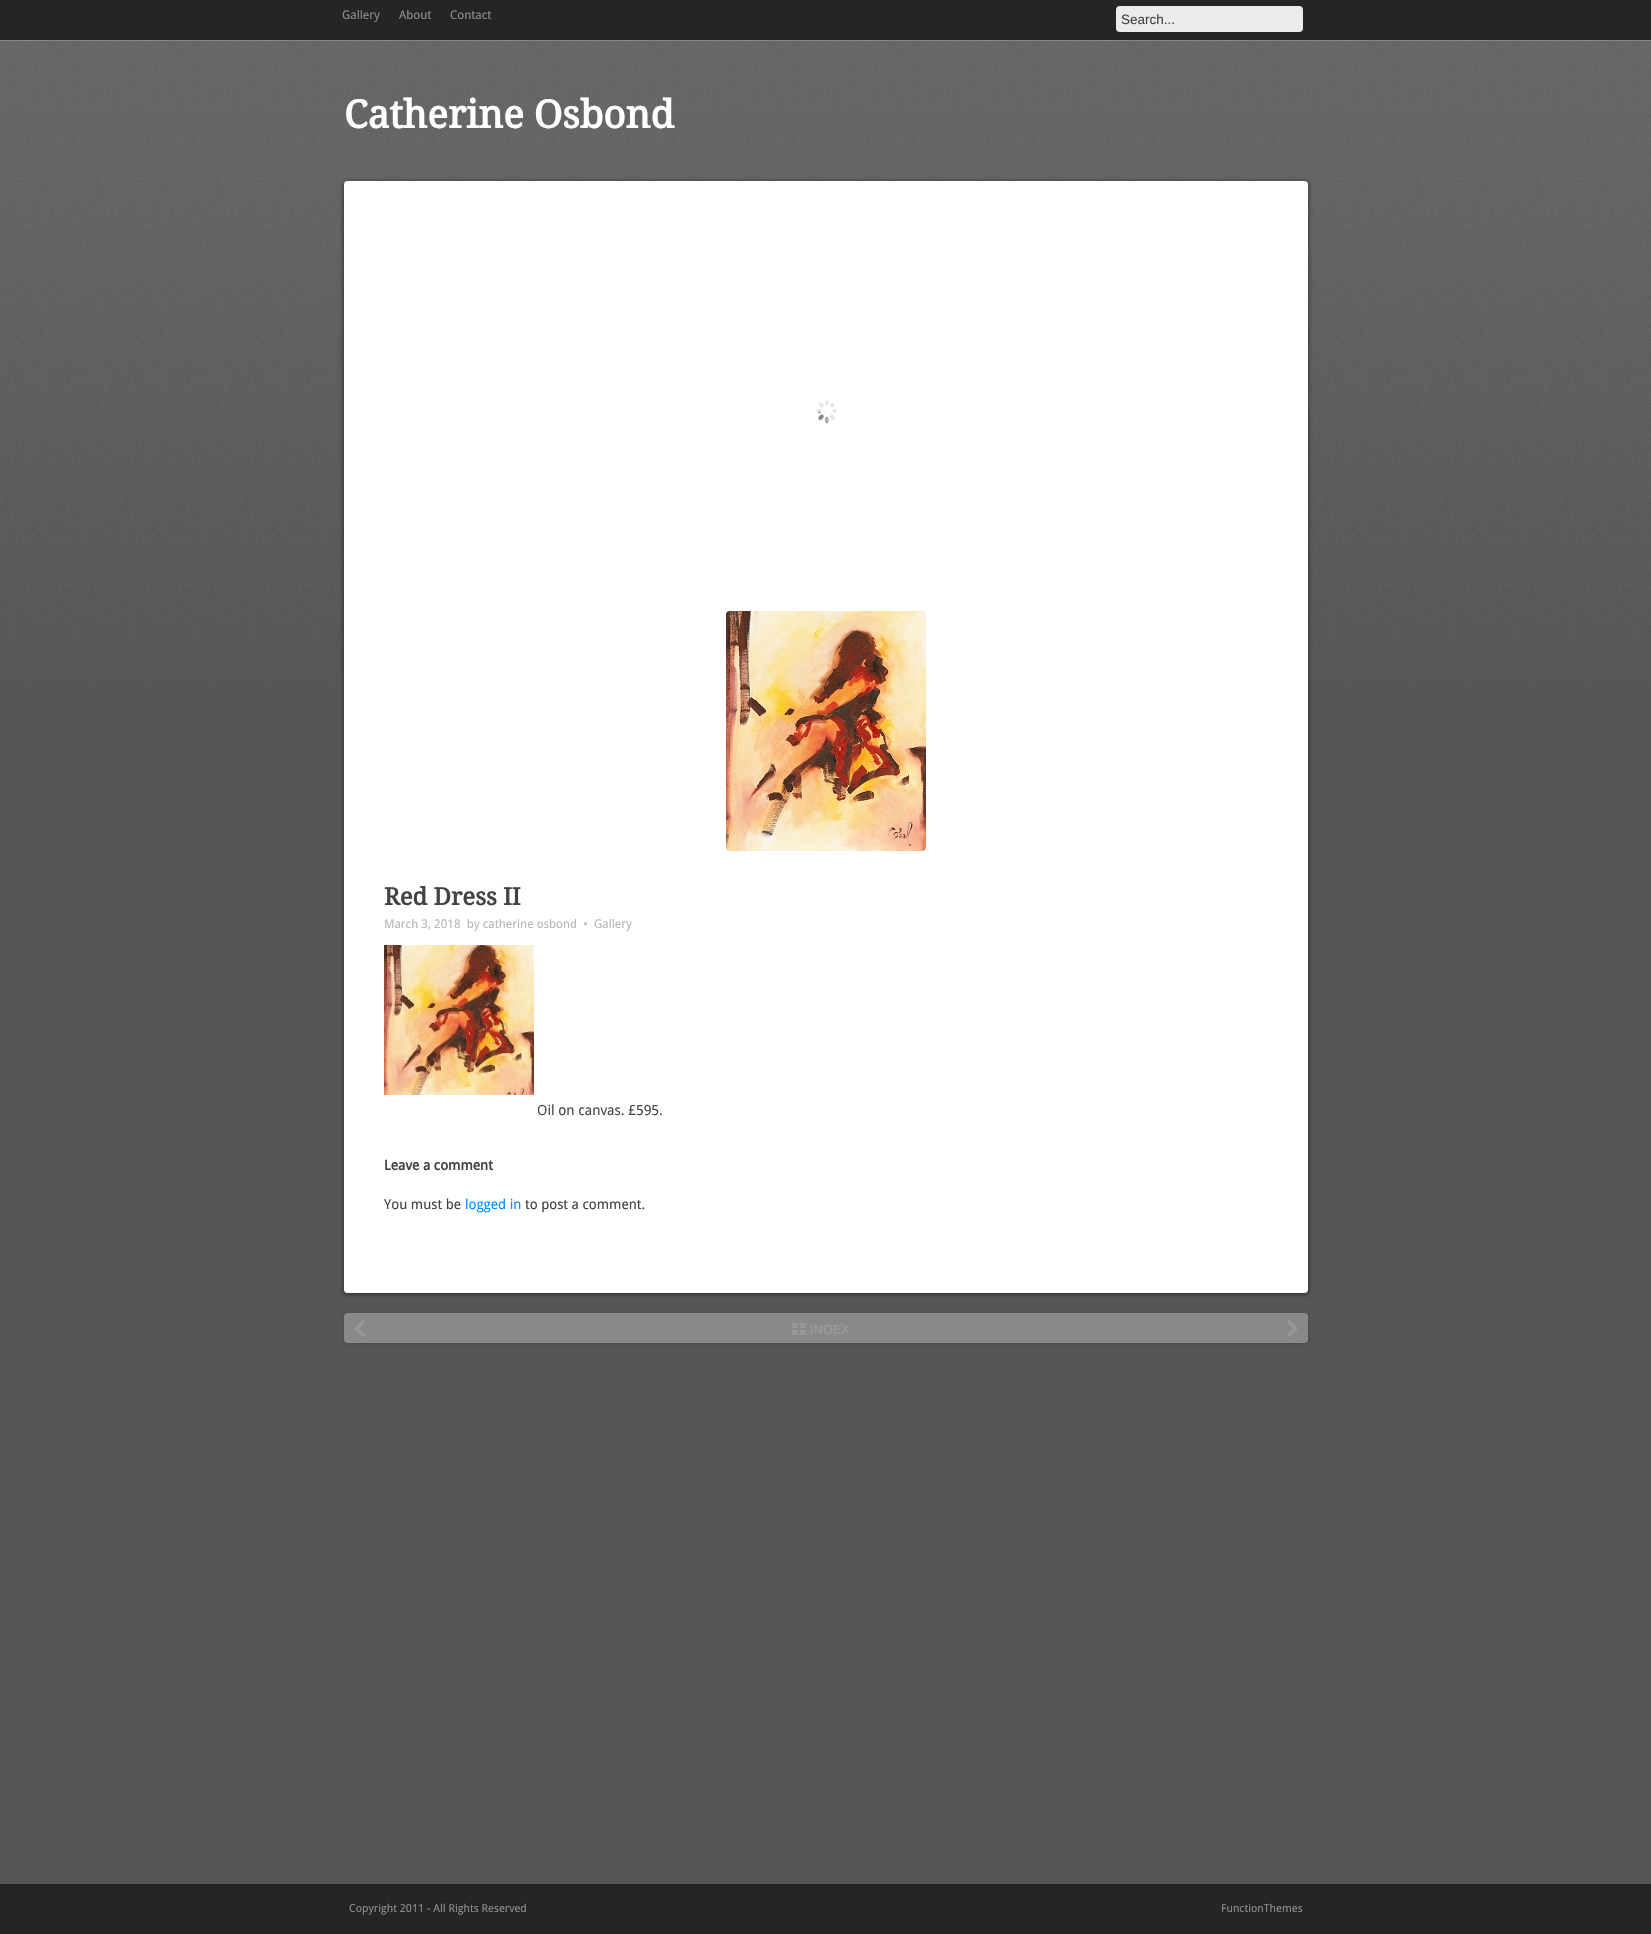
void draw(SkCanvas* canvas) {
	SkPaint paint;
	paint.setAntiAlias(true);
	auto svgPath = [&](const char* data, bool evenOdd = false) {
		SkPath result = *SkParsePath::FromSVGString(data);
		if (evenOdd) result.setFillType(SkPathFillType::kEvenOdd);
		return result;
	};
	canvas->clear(0xff565656);
	canvas->drawImageRect(SkImages::DeferredFromEncodedData(SkData::MakeFromFileName("img1.png")), SkRect::MakeXYWH(0, 40, 1651, 642), SkSamplingOptions());
	paint.setColor(0xff252525);
	canvas->drawRect(SkRect::MakeXYWH(0, 0, 1651, 40), paint);
	SkFont f1(fontMgr->matchFamilyStyle("Droid Sans", SkFontStyle::Normal()), 12);
	f1.setSubpixel(true);
	paint.setColor(0xff8d8d8d);
	canvas->drawString("Gallery", 342, 19, f1, paint);
	canvas->drawString("About", 399, 19, f1, paint);
	canvas->drawString("Contact", 450, 19, f1, paint);
	paint.setColor(0xffebebeb);
	canvas->drawRoundRect(SkRect::MakeXYWH(1116, 6, 187, 26), 4, 4, paint);
	SkFont f2(fontMgr->matchFamilyStyle("Liberation Sans", SkFontStyle::Normal()), 13.5);
	f2.setSubpixel(true);
	paint.setColor(0xff434343);
	canvas->drawString("Search...", 1121, 24, f2, paint);
	SkFont f3(fontMgr->matchFamilyStyle("Droid Serif", SkFontStyle::Bold()), 38.5);
	f3.setSubpixel(true);
	paint.setColor(0xffffffff);
	canvas->drawString("Catherine Osbond", 344, 128, f3, paint);
	canvas->drawRoundRect(SkRect::MakeXYWH(344, 181, 964, 1112), 4, 4, paint);
	canvas->save();
	canvas->clipPath(svgPath("M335 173H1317V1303H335ZM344 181H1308V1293H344Z", true), true);
	paint.setColor(0xff252525);
	paint.setMaskFilter(SkMaskFilter::MakeBlur(kNormal_SkBlurStyle, 2.5));
	canvas->drawRect(SkRect::MakeXYWH(344, 182, 964, 1112), paint);
	paint.setMaskFilter(nullptr);
	canvas->restore();
	canvas->drawImageRect(SkImages::DeferredFromEncodedData(SkData::MakeFromFileName("img2.png")), SkRect::MakeXYWH(817, 400, 20, 24), SkSamplingOptions());
	canvas->drawImageRect(SkImages::DeferredFromEncodedData(SkData::MakeFromFileName("img3.png")), SkRect::MakeXYWH(726, 611, 200, 240), SkSamplingOptions());
	SkFont f4(fontMgr->matchFamilyStyle("Droid Serif", SkFontStyle::Bold()), 24);
	f4.setSubpixel(true);
	paint.setColor(0xff434343);
	canvas->drawString("Red Dress II", 384, 905, f4, paint);
	paint.setColor(0xffb7b7b7);
	canvas->drawString("March 3, 2018  by catherine osbond  •", 384, 928, f1, paint);
	canvas->drawString("Gallery", 594, 928, f1, paint);
	canvas->drawImageRect(SkImages::DeferredFromEncodedData(SkData::MakeFromFileName("img4.png")), SkRect::MakeXYWH(384, 945, 150, 150), SkSamplingOptions());
	SkFont f5(fontMgr->matchFamilyStyle("Droid Sans", SkFontStyle::Normal()), 14);
	f5.setSubpixel(true);
	paint.setColor(0xff4b4b4b);
	canvas->drawString("Oil on canvas. £595.", 537, 1115, f5, paint);
	SkFont f6(fontMgr->matchFamilyStyle("Droid Sans", SkFontStyle::Bold()), 13.75);
	f6.setSubpixel(true);
	paint.setColor(0xff434343);
	canvas->drawString("Leave a comment", 384, 1170, f6, paint);
	SkFont f7(fontMgr->matchFamilyStyle("Droid Sans", SkFontStyle::Normal()), 13.75);
	f7.setSubpixel(true);
	canvas->drawString("You must be", 384, 1209, f7, paint);
	paint.setColor(0xff088cff);
	canvas->drawString("logged in", 465, 1209, f7, paint);
	paint.setColor(0xff434343);
	canvas->drawString("to post a comment.", 525, 1209, f7, paint);
	paint.setColor(0xff474747);
	paint.setMaskFilter(SkMaskFilter::MakeBlur(kNormal_SkBlurStyle, 2.5));
	canvas->drawRoundRect(SkRect::MakeXYWH(344, 1314, 964, 30), 4, 4, paint);
	paint.setMaskFilter(nullptr);
	paint.setColor(0xff898989);
	canvas->drawRoundRect(SkRect::MakeXYWH(344, 1313, 964, 30), 4, 4, paint);
	canvas->drawImageRect(SkImages::DeferredFromEncodedData(SkData::MakeFromFileName("img5.png")), SkRect::MakeXYWH(354, 1320, 11, 17), SkSamplingOptions());
	canvas->drawImageRect(SkImages::DeferredFromEncodedData(SkData::MakeFromFileName("img6.png")), SkRect::MakeXYWH(792, 1323, 58, 12), SkSamplingOptions());
	canvas->drawImageRect(SkImages::DeferredFromEncodedData(SkData::MakeFromFileName("img7.png")), SkRect::MakeXYWH(1287, 1320, 11, 17), SkSamplingOptions());
	paint.setColor(0xff252525);
	canvas->drawRect(SkRect::MakeXYWH(0, 1884, 1651, 50), paint);
	SkFont f8(fontMgr->matchFamilyStyle("Droid Sans", SkFontStyle::Normal()), 11);
	f8.setSubpixel(true);
	paint.setColor(0xff8d8d8d);
	canvas->drawString("Copyright 2011 - All Rights Reserved", 349, 1912, f8, paint);
	canvas->drawString("FunctionThemes", 1221, 1912, f8, paint);
}
